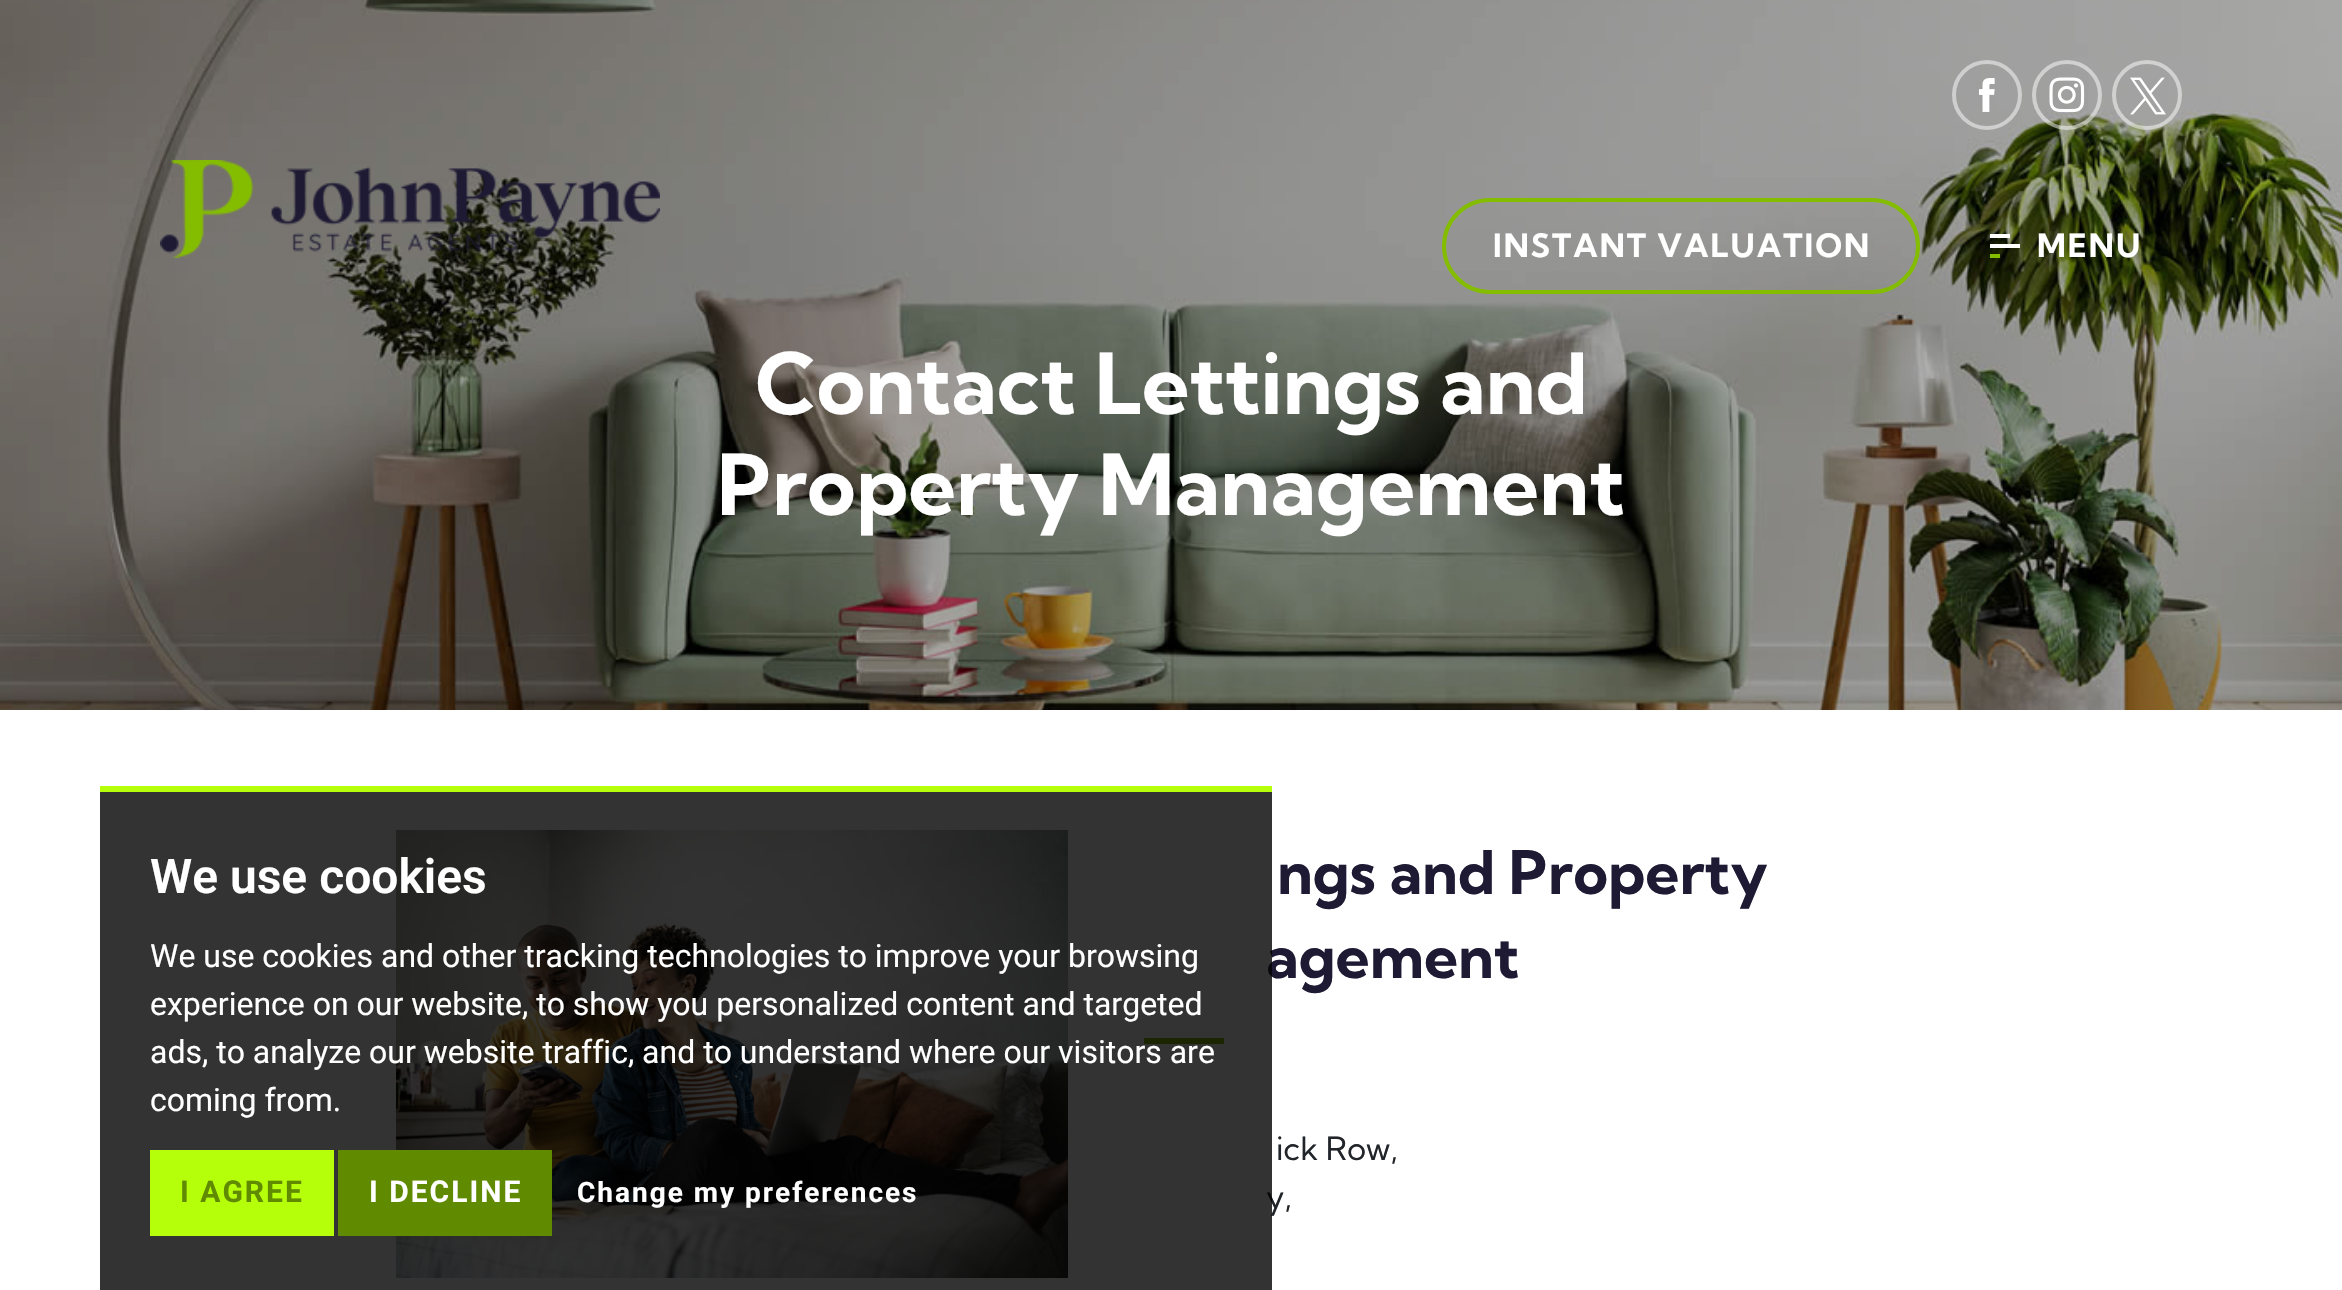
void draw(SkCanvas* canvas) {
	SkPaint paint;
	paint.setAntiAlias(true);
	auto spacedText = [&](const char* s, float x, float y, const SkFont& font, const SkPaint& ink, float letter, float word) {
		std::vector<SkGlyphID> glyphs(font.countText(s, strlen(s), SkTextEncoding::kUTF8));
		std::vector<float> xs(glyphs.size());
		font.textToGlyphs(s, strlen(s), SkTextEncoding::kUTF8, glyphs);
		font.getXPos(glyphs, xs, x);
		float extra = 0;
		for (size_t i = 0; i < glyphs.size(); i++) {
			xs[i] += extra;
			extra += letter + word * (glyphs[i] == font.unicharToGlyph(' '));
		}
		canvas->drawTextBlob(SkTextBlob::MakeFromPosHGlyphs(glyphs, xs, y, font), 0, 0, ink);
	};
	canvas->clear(0xffffffff);
	canvas->drawImageRect(SkImages::DeferredFromEncodedData(SkData::MakeFromFileName("img5.png")), SkRect::MakeXYWH(0, 0, 2342, 710), SkSamplingOptions());
	paint.setStroke(true);
	paint.setStrokeWidth(4);
	paint.setColor(0xffcfcfcf);
	canvas->drawCircle(1987, 95, 33, paint);
	canvas->drawImageRect(SkImages::DeferredFromEncodedData(SkData::MakeFromFileName("img1.png")), SkRect::MakeXYWH(1979, 78, 16, 34), SkSamplingOptions());
	paint.setColor(0x80ffffff);
	canvas->drawCircle(2067, 95, 33, paint);
	canvas->drawImageRect(SkImages::DeferredFromEncodedData(SkData::MakeFromFileName("img2.png")), SkRect::MakeXYWH(2049, 77, 36, 36), SkSamplingOptions());
	canvas->drawCircle(2147, 95, 33, paint);
	canvas->drawImageRect(SkImages::DeferredFromEncodedData(SkData::MakeFromFileName("img3.png")), SkRect::MakeXYWH(2130, 77, 36, 38), SkSamplingOptions());
	canvas->drawImageRect(SkImages::DeferredFromEncodedData(SkData::MakeFromFileName("img4.png")), SkRect::MakeXYWH(160, 160, 500, 98), SkSamplingOptions());
	paint.setColor(0xff84bd00);
	canvas->drawRoundRect(SkRect::MakeXYWH(1444, 200, 474, 92), 46, 46, paint);
	SkFont f1(fontMgr->matchFamilyStyle("Kumbh Sans", SkFontStyle::Bold()), 32);
	f1.setSubpixel(true);
	paint.setStroke(false);
	paint.setColor(0xffffffff);
	spacedText("INSTANT VALUATION", 1493, 257, f1, paint, 2, 0);
	canvas->drawRect(SkRect::MakeXYWH(1990, 244, 30, 4), paint);
	canvas->drawRect(SkRect::MakeXYWH(1990, 234, 20, 4), paint);
	paint.setColor(0xff84bd00);
	canvas->drawRect(SkRect::MakeXYWH(1990, 254, 10, 4), paint);
	paint.setColor(0xffffffff);
	spacedText("MENU", 2037, 257, f1, paint, 2, 0);
	SkFont f2(fontMgr->matchFamilyStyle("Kumbh Sans", SkFontStyle::Bold()), 84);
	f2.setSubpixel(true);
	canvas->drawString("Contact Lettings and", 755, 414, f2, paint);
	canvas->drawString("Property Management", 717, 515, f2, paint);
	canvas->drawImageRect(SkImages::DeferredFromEncodedData(SkData::MakeFromFileName("img6.png")), SkRect::MakeXYWH(396, 830, 672, 448), SkSamplingOptions());
	SkFont f3(fontMgr->matchFamilyStyle("Kumbh Sans", SkFontStyle::Bold()), 60);
	f3.setSubpixel(true);
	paint.setColor(0xff1e1a34);
	canvas->drawString("agement", 1266, 978, f3, paint);
	paint.setColor(0xff84bd00);
	canvas->drawRect(SkRect::MakeXYWH(1144, 1038, 80, 6), paint);
	SkFont f4(fontMgr->matchFamilyStyle("Kumbh Sans", SkFontStyle::Normal()), 32);
	f4.setSubpixel(true);
	paint.setColor(0xff212529);
	canvas->drawString("y,", 1266, 1208, f4, paint);
	paint.setColor(0xcc000000);
	canvas->drawRect(SkRect::MakeXYWH(100, 792, 1172, 498), paint);
	paint.setColor(0xffb5ff0b);
	canvas->drawRect(SkRect::MakeXYWH(100, 786, 1172, 6), paint);
	SkFont f5(fontMgr->matchFamilyStyle("Roboto", SkFontStyle(600, SkFontStyle::kNormal_Width, SkFontStyle::kUpright_Slant)), 48);
	f5.setSubpixel(true);
	paint.setColor(0xffffffff);
	canvas->drawString("We use cookies", 150, 893, f5, paint);
	SkFont f6(fontMgr->matchFamilyStyle("Roboto", SkFontStyle::Normal()), 32);
	f6.setSubpixel(true);
	canvas->drawString("We use cookies and other tracking technologies to improve your browsing", 150, 967, f6, paint);
	canvas->drawString("experience on our website, to show you personalized content and targeted", 150, 1015, f6, paint);
	canvas->drawString("ads, to analyze our website traffic, and to understand where our visitors are", 150, 1063, f6, paint);
	canvas->drawString("coming from.", 150, 1111, f6, paint);
	paint.setColor(0xffb5ff0b);
	canvas->drawRect(SkRect::MakeXYWH(150, 1150, 184, 86), paint);
	SkFont f7(fontMgr->matchFamilyStyle("Roboto", SkFontStyle::Bold()), 30);
	f7.setSubpixel(true);
	paint.setColor(0xff608a00);
	spacedText("I AGREE", 180, 1202, f7, paint, 2, 0);
	canvas->drawRect(SkRect::MakeXYWH(338, 1150, 214, 86), paint);
	paint.setColor(0xffffffff);
	spacedText("I DECLINE", 369, 1202, f7, paint, 2, 0);
	SkFont f8(fontMgr->matchFamilyStyle("Roboto", SkFontStyle::Bold()), 28);
	f8.setSubpixel(true);
	spacedText("Change my preferences", 577, 1202, f8, paint, 2, 0);
	paint.setColor(0xff1e1a34);
	canvas->drawString("ngs and Property", 1277, 894, f3, paint);
	paint.setColor(0xff212529);
	canvas->drawString("ick Row,", 1276, 1160, f4, paint);
}
